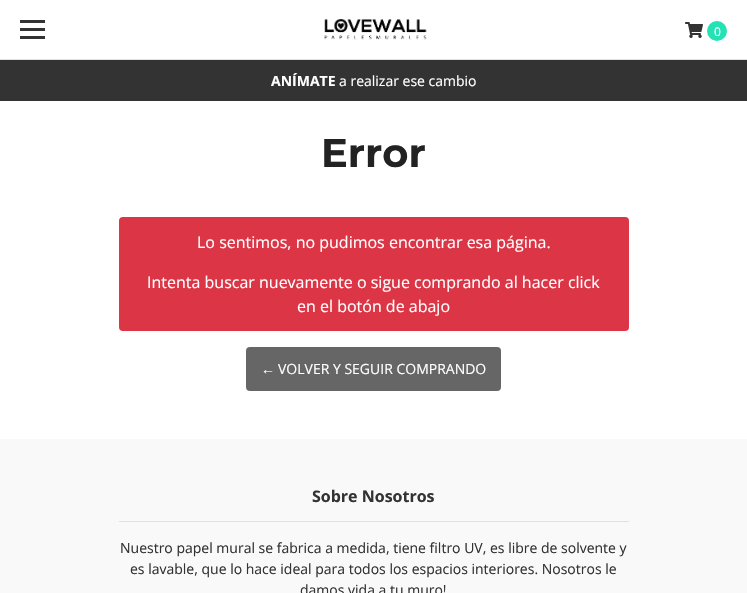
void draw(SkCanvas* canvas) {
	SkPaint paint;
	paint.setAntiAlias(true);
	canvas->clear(0xffffffff);
	paint.setColor(0xff333333);
	canvas->drawRect(SkRect::MakeXYWH(20, 20, 25, 3), paint);
	canvas->drawRect(SkRect::MakeXYWH(20, 28, 25, 3), paint);
	canvas->drawRect(SkRect::MakeXYWH(20, 36, 25, 3), paint);
	paint.setColor(0xffe1e1e1);
	canvas->drawRect(SkRect::MakeXYWH(0, 59, 747, 1), paint);
	canvas->drawImageRect(SkImages::DeferredFromEncodedData(SkData::MakeFromFileName("img1.png")), SkRect::MakeXYWH(324, 19, 103, 21), SkSamplingOptions());
	canvas->drawImageRect(SkImages::DeferredFromEncodedData(SkData::MakeFromFileName("img2.png")), SkRect::MakeXYWH(685, 22, 18, 16), SkSamplingOptions());
	paint.setColor(0xff23e2b4);
	canvas->drawCircle(717, 31, 10, paint);
	SkFont f1(fontMgr->matchFamilyStyle("Open Sans", SkFontStyle::Normal()), 12);
	f1.setSubpixel(true);
	paint.setColor(0xffffffff);
	canvas->drawString("0", 714, 36, f1, paint);
	paint.setColor(0xff333333);
	canvas->drawRect(SkRect::MakeXYWH(0, 60, 747, 41), paint);
	SkFont f2(fontMgr->matchFamilyStyle("Open Sans", SkFontStyle::Bold()), 14);
	f2.setSubpixel(true);
	paint.setColor(0xffffffff);
	canvas->drawString("ANÍMATE", 271, 86, f2, paint);
	SkFont f3(fontMgr->matchFamilyStyle("Open Sans", SkFontStyle::Normal()), 14);
	f3.setSubpixel(true);
	canvas->drawString("a realizar ese cambio", 339, 86, f3, paint);
	SkFont f4(fontMgr->matchFamilyStyle("Montserrat", SkFontStyle::Bold()), 40);
	f4.setSubpixel(true);
	paint.setColor(0xff222222);
	canvas->drawString("Error", 321, 167, f4, paint);
	paint.setColor(0xffdc3545);
	canvas->drawRoundRect(SkRect::MakeXYWH(119, 217, 510, 114), 4, 4, paint);
	SkFont f5(fontMgr->matchFamilyStyle("Open Sans", SkFontStyle::Normal()), 16);
	f5.setSubpixel(true);
	paint.setColor(0xffffffff);
	canvas->drawString("Lo sentimos, no pudimos encontrar esa página.", 197, 248, f5, paint);
	canvas->drawString("Intenta buscar nuevamente o sigue comprando al hacer click", 147, 288, f5, paint);
	canvas->drawString("en el botón de abajo", 297, 312, f5, paint);
	paint.setColor(0xff666666);
	canvas->drawRoundRect(SkRect::MakeXYWH(246, 347, 255, 44), 4, 4, paint);
	SkFont f6(fontMgr->matchFamilyStyle("Liberation Serif", SkFontStyle::Normal()), 14);
	f6.setSubpixel(true);
	paint.setColor(0xffffffff);
	canvas->drawString("←", 261, 374, f6, paint);
	canvas->drawString("VOLVER Y SEGUIR COMPRANDO", 278, 374, f3, paint);
	paint.setColor(0xfff9f9f9);
	canvas->drawRect(SkRect::MakeXYWH(0, 439, 747, 154), paint);
	paint.setColor(0xffe0e0e0);
	canvas->drawRect(SkRect::MakeXYWH(119, 521, 510, 1), paint);
	SkFont f7(fontMgr->matchFamilyStyle("Open Sans", SkFontStyle::Bold()), 16);
	f7.setSubpixel(true);
	paint.setColor(0xff333333);
	canvas->drawString("Sobre Nosotros", 312, 502, f7, paint);
	canvas->drawString("Nuestro papel mural se fabrica a medida, tiene filtro UV, es libre de solvente y", 120, 553, f3, paint);
	canvas->drawString("es lavable, que lo hace ideal para todos los espacios interiores. Nosotros le", 130, 574, f3, paint);
	canvas->drawString("damos vida a tu muro!", 300, 595, f3, paint);
}
